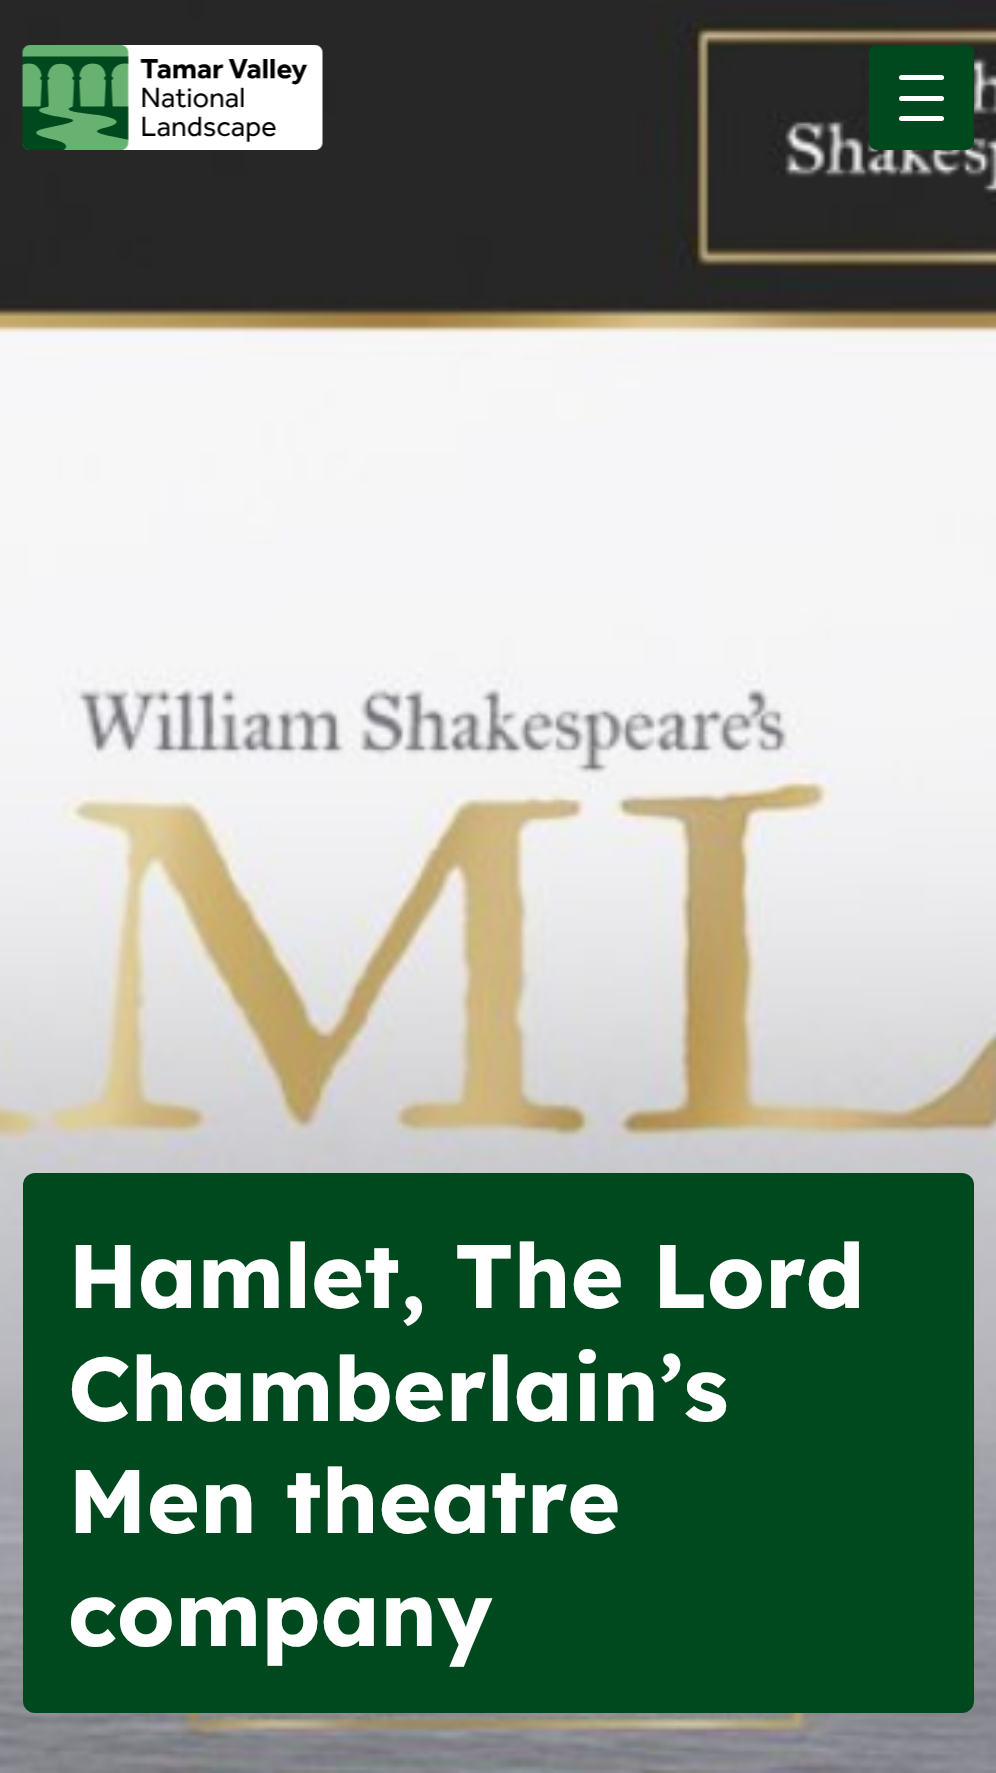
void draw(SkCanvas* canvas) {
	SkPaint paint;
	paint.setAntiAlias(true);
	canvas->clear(0xffffffff);
	canvas->drawImageRect(SkImages::DeferredFromEncodedData(SkData::MakeFromFileName("img2.png")), SkRect::MakeXYWH(0, 0, 996, 1773), SkSamplingOptions());
	canvas->drawImageRect(SkImages::DeferredFromEncodedData(SkData::MakeFromFileName("img1.png")), SkRect::MakeXYWH(22, 45, 301, 105), SkSamplingOptions());
	paint.setColor(0xff00491e);
	canvas->drawRoundRect(SkRect::MakeXYWH(869, 45, 105, 105), 8, 8, paint);
	paint.setColor(0xffffffff);
	canvas->drawRoundRect(SkRect::MakeXYWH(899, 75, 45, 5), 2.5, 2.5, paint);
	canvas->drawRoundRect(SkRect::MakeXYWH(899, 96, 45, 5), 2.5, 2.5, paint);
	canvas->drawRoundRect(SkRect::MakeXYWH(899, 116, 45, 5), 2.5, 2.5, paint);
	paint.setColor(0xff00491e);
	canvas->drawRoundRect(SkRect::MakeXYWH(23, 1173, 951, 540), 12, 12, paint);
	SkFont f1(fontMgr->matchFamilyStyle("Lexend", SkFontStyle::Bold()), 90);
	f1.setSubpixel(true);
	paint.setColor(0xffffffff);
	canvas->drawString("Hamlet, The Lord", 68, 1308, f1, paint);
	canvas->drawString("Chamberlain’s", 68, 1421, f1, paint);
	canvas->drawString("Men theatre", 68, 1533, f1, paint);
	canvas->drawString("company", 68, 1646, f1, paint);
}
